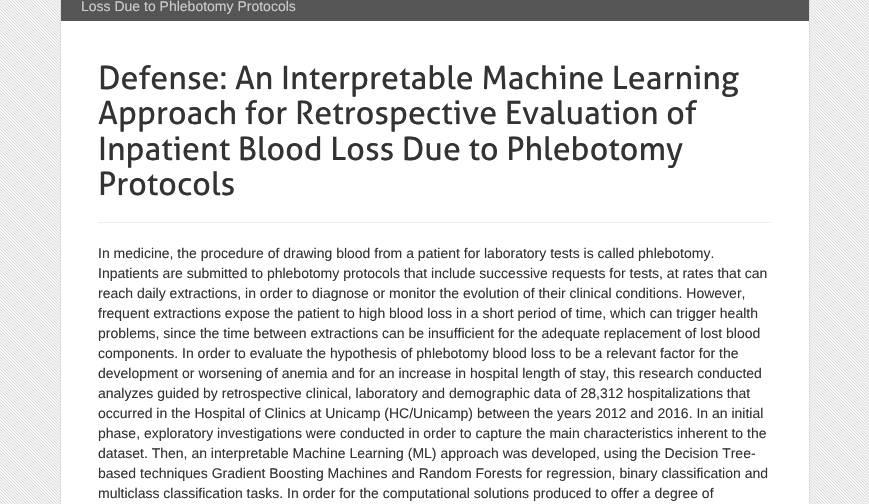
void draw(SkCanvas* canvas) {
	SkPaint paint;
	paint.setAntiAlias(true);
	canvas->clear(0xffffffff);
	canvas->drawImageRect(SkImages::DeferredFromEncodedData(SkData::MakeFromFileName("img1.png")), SkRect::MakeXYWH(0, 0, 869, 504), SkSamplingOptions());
	paint.setColor(0xffffffff);
	canvas->drawRect(SkRect::MakeXYWH(61, 21, 748, 483), paint);
	paint.setStroke(true);
	paint.setStrokeWidth(1);
	paint.setColor(0xffdddddd);
	canvas->drawRect(SkRect::MakeXYWH(60.5, -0.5, 749, 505), paint);
	paint.setStroke(false);
	paint.setColor(0xff555555);
	canvas->drawRect(SkRect::MakeXYWH(61, 0, 748, 21), paint);
	SkFont f1(fontMgr->matchFamilyStyle("Liberation Sans", SkFontStyle::Normal()), 14);
	f1.setSubpixel(true);
	paint.setColor(0xffcccccc);
	canvas->drawString("Loss Due to Phlebotomy Protocols", 81, 11, f1, paint);
	paint.setColor(0xffeeeeee);
	canvas->drawRect(SkRect::MakeXYWH(98, 222, 673, 1), paint);
	SkFont f2(fontMgr->matchFamilyStyle("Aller", SkFontStyle::Normal()), 32.25);
	f2.setSubpixel(true);
	paint.setColor(0xff333333);
	canvas->drawString("Defense: An Interpretable Machine Learning", 98, 89, f2, paint);
	canvas->drawString("Approach for Retrospective Evaluation of", 98, 124, f2, paint);
	canvas->drawString("Inpatient Blood Loss Due to Phlebotomy", 98, 160, f2, paint);
	canvas->drawString("Protocols", 98, 195, f2, paint);
	canvas->drawString("In medicine, the procedure of drawing blood from a patient for laboratory tests is called phlebotomy.", 98, 258, f1, paint);
	canvas->drawString("Inpatients are submitted to phlebotomy protocols that include successive requests for tests, at rates that can", 98, 278, f1, paint);
	canvas->drawString("reach daily extractions, in order to diagnose or monitor the evolution of their clinical conditions. However,", 98, 298, f1, paint);
	canvas->drawString("frequent extractions expose the patient to high blood loss in a short period of time, which can trigger health", 98, 318, f1, paint);
	canvas->drawString("problems, since the time between extractions can be insufficient for the adequate replacement of lost blood", 98, 338, f1, paint);
	canvas->drawString("components. In order to evaluate the hypothesis of phlebotomy blood loss to be a relevant factor for the", 98, 358, f1, paint);
	canvas->drawString("development or worsening of anemia and for an increase in hospital length of stay, this research conducted", 98, 378, f1, paint);
	canvas->drawString("analyzes guided by retrospective clinical, laboratory and demographic data of 28,312 hospitalizations that", 98, 398, f1, paint);
	canvas->drawString("occurred in the Hospital of Clinics at Unicamp (HC/Unicamp) between the years 2012 and 2016. In an initial", 98, 418, f1, paint);
	canvas->drawString("phase, exploratory investigations were conducted in order to capture the main characteristics inherent to the", 98, 438, f1, paint);
	canvas->drawString("dataset. Then, an interpretable Machine Learning (ML) approach was developed, using the Decision Tree-", 98, 458, f1, paint);
	canvas->drawString("based techniques Gradient Boosting Machines and Random Forests for regression, binary classification and", 98, 478, f1, paint);
	canvas->drawString("multiclass classification tasks. In order for the computational solutions produced to offer a degree of", 98, 498, f1, paint);
}
